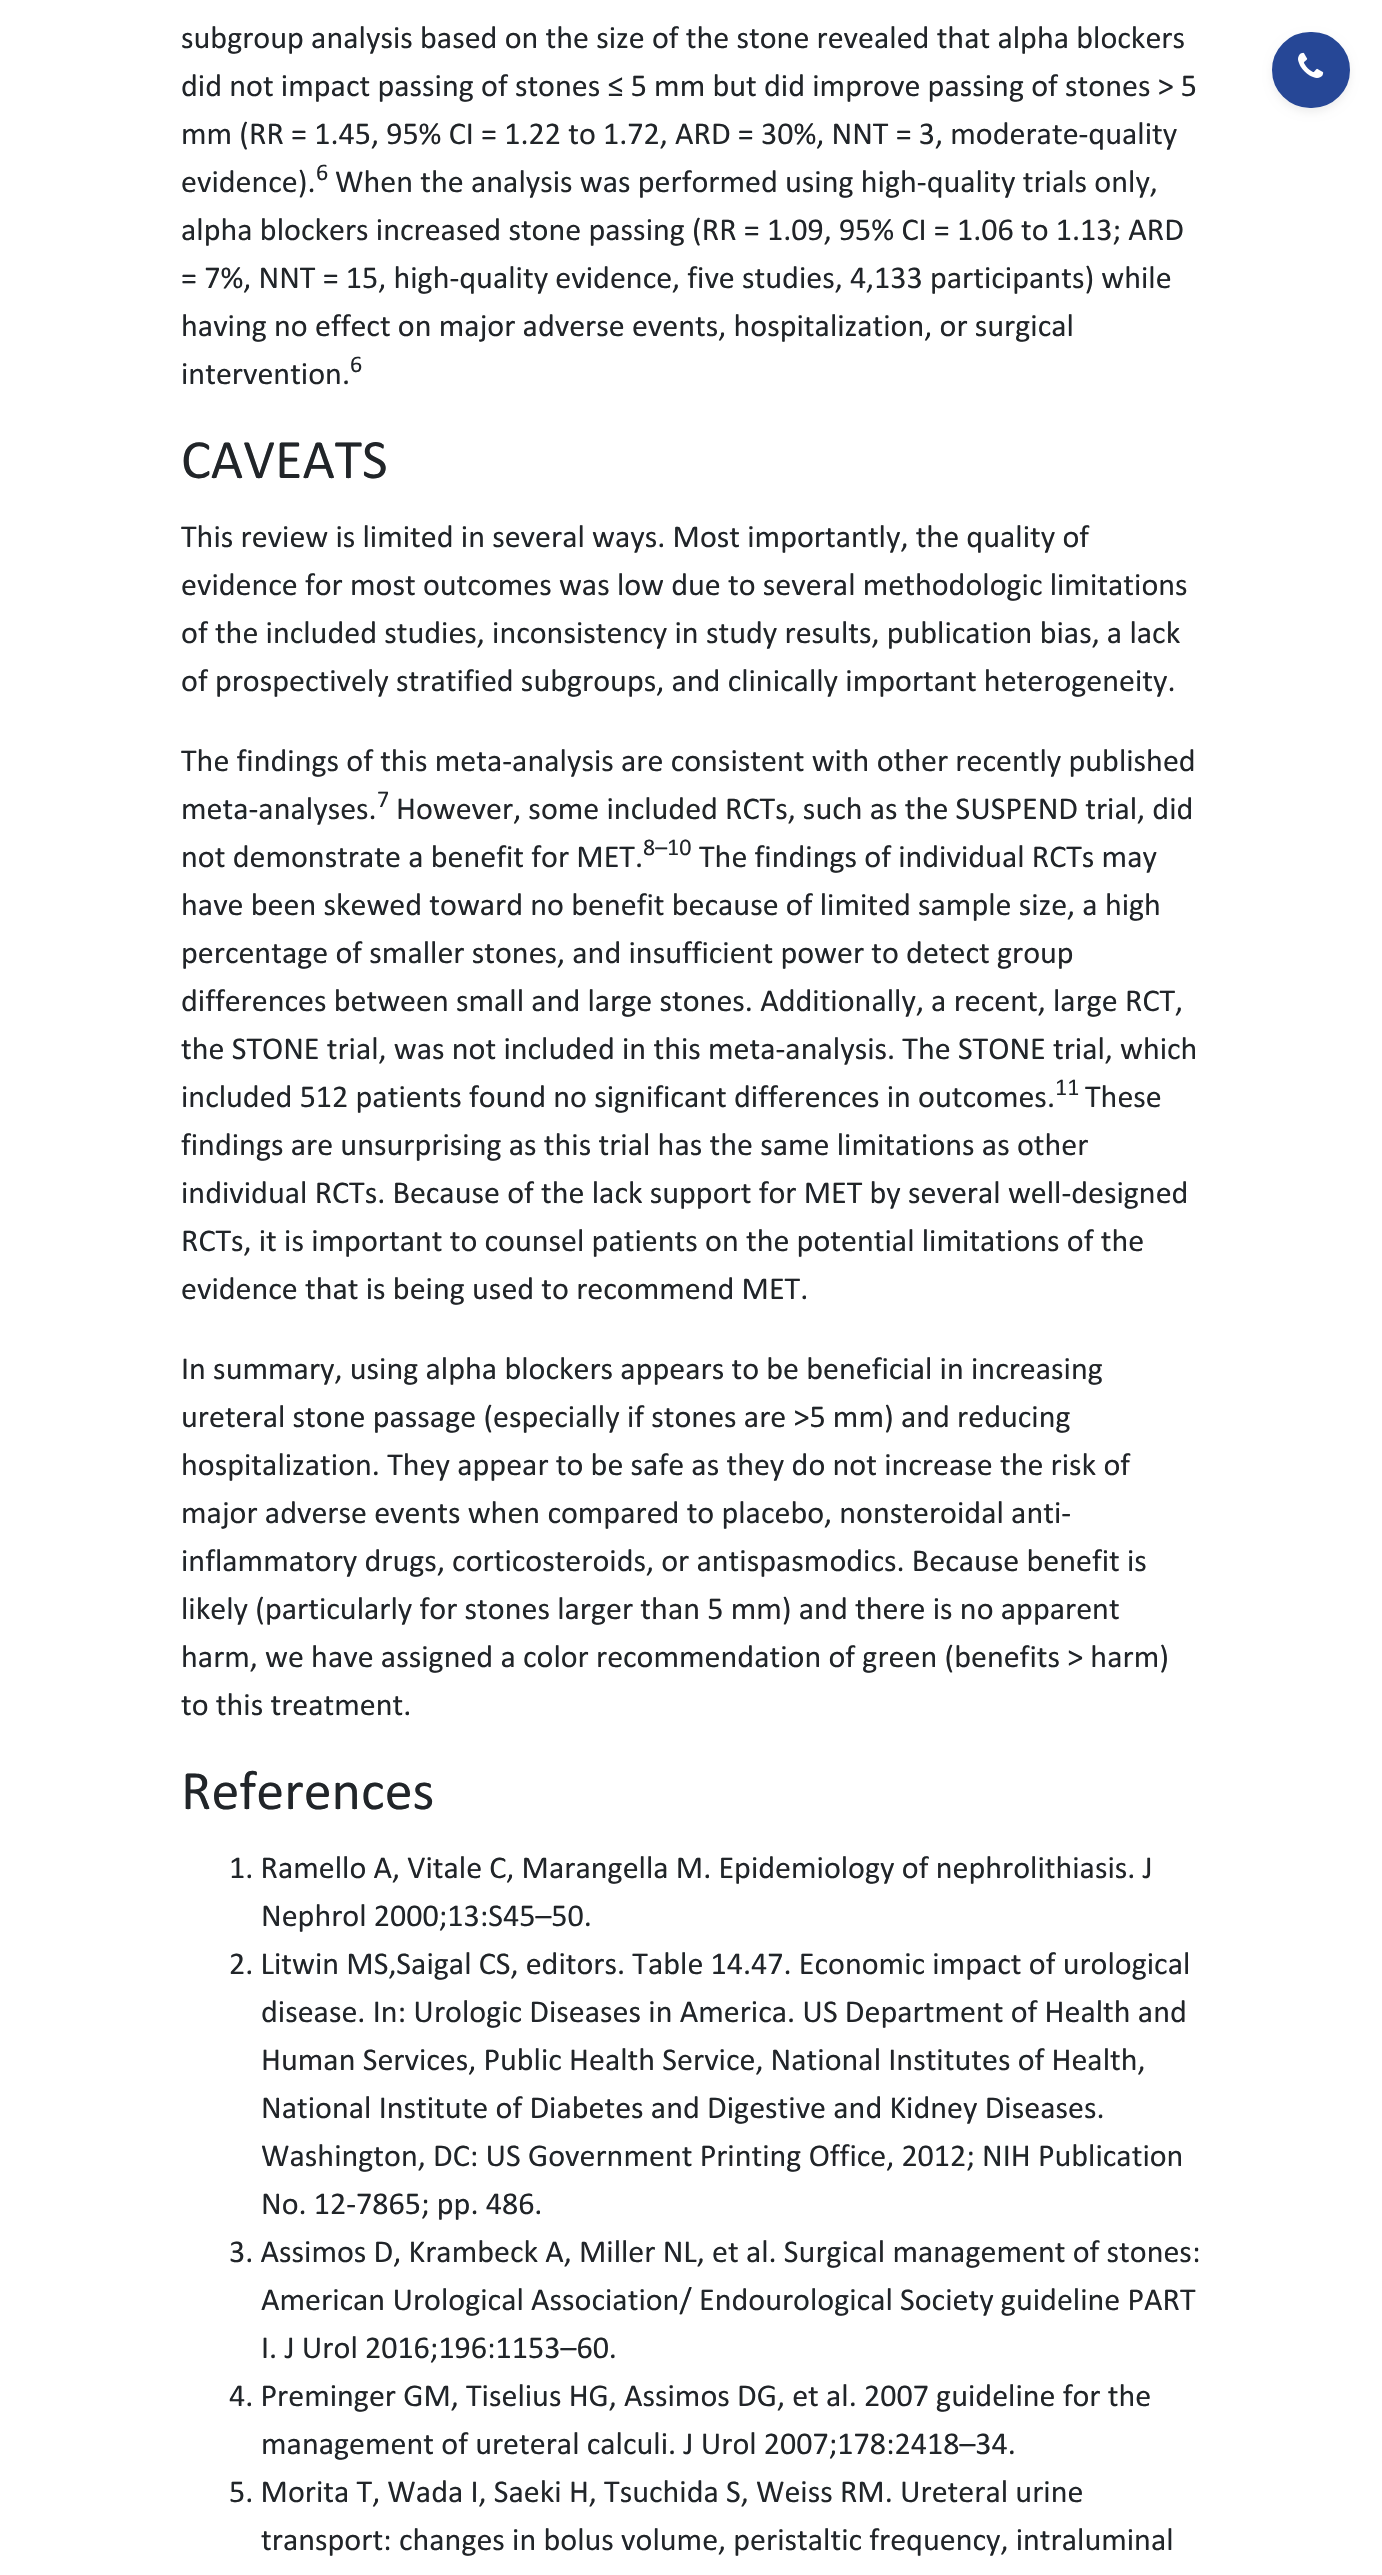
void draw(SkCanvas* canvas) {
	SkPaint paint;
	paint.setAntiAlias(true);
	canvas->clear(0xffffffff);
	SkFont f1(fontMgr->matchFamilyStyle("Calibri", SkFontStyle::Normal()), 32);
	f1.setSubpixel(true);
	paint.setColor(0xff212529);
	canvas->drawString("subgroup analysis based on the size of the stone revealed that alpha blockers", 181, 48, f1, paint);
	canvas->drawString("did not impact passing of stones ≤ 5 mm but did improve passing of stones > 5", 181, 96, f1, paint);
	canvas->drawString("mm (RR = 1.45, 95% CI = 1.22 to 1.72, ARD = 30%, NNT = 3, moderate-quality", 181, 144, f1, paint);
	canvas->drawString("evidence).", 181, 192, f1, paint);
	SkFont f2(fontMgr->matchFamilyStyle("Calibri", SkFontStyle::Normal()), 24);
	f2.setSubpixel(true);
	canvas->drawString("6", 316, 180, f2, paint);
	canvas->drawString("When the analysis was performed using high-quality trials only,", 335, 192, f1, paint);
	canvas->drawString("alpha blockers increased stone passing (RR = 1.09, 95% CI = 1.06 to 1.13; ARD", 181, 240, f1, paint);
	canvas->drawString("= 7%, NNT = 15, high-quality evidence, five studies, 4,133 participants) while", 181, 288, f1, paint);
	canvas->drawString("having no effect on major adverse events, hospitalization, or surgical", 181, 336, f1, paint);
	canvas->drawString("intervention.", 181, 384, f1, paint);
	canvas->drawString("6", 350, 372, f2, paint);
	SkFont f3(fontMgr->matchFamilyStyle("Calibri", SkFontStyle::Normal()), 56);
	f3.setSubpixel(true);
	canvas->drawString("CAVEATS", 181, 478, f3, paint);
	canvas->drawString("This review is limited in several ways. Most importantly, the quality of", 181, 547, f1, paint);
	canvas->drawString("evidence for most outcomes was low due to several methodologic limitations", 181, 595, f1, paint);
	canvas->drawString("of the included studies, inconsistency in study results, publication bias, a lack", 181, 643, f1, paint);
	canvas->drawString("of prospectively stratified subgroups, and clinically important heterogeneity.", 181, 691, f1, paint);
	canvas->drawString("The findings of this meta-analysis are consistent with other recently published", 181, 771, f1, paint);
	canvas->drawString("meta-analyses.", 181, 819, f1, paint);
	canvas->drawString("7", 377, 807, f2, paint);
	canvas->drawString("However, some included RCTs, such as the SUSPEND trial, did", 396, 819, f1, paint);
	canvas->drawString("not demonstrate a benefit for MET.", 181, 867, f1, paint);
	canvas->drawString("8–10", 643, 855, f2, paint);
	canvas->drawString("The findings of individual RCTs may", 699, 867, f1, paint);
	canvas->drawString("have been skewed toward no benefit because of limited sample size, a high", 181, 915, f1, paint);
	canvas->drawString("percentage of smaller stones, and insufficient power to detect group", 181, 963, f1, paint);
	canvas->drawString("differences between small and large stones. Additionally, a recent, large RCT,", 181, 1011, f1, paint);
	canvas->drawString("the STONE trial, was not included in this meta-analysis. The STONE trial, which", 181, 1059, f1, paint);
	canvas->drawString("included 512 patients found no significant differences in outcomes.", 181, 1107, f1, paint);
	canvas->drawString("11", 1055, 1095, f2, paint);
	canvas->drawString("These", 1085, 1107, f1, paint);
	canvas->drawString("findings are unsurprising as this trial has the same limitations as other", 181, 1155, f1, paint);
	canvas->drawString("individual RCTs. Because of the lack support for MET by several well-designed", 181, 1203, f1, paint);
	canvas->drawString("RCTs, it is important to counsel patients on the potential limitations of the", 181, 1251, f1, paint);
	canvas->drawString("evidence that is being used to recommend MET.", 181, 1299, f1, paint);
	canvas->drawString("In summary, using alpha blockers appears to be beneficial in increasing", 181, 1379, f1, paint);
	canvas->drawString("ureteral stone passage (especially if stones are >5 mm) and reducing", 181, 1427, f1, paint);
	canvas->drawString("hospitalization. They appear to be safe as they do not increase the risk of", 181, 1475, f1, paint);
	canvas->drawString("major adverse events when compared to placebo, nonsteroidal anti-", 181, 1523, f1, paint);
	canvas->drawString("inflammatory drugs, corticosteroids, or antispasmodics. Because benefit is", 181, 1571, f1, paint);
	canvas->drawString("likely (particularly for stones larger than 5 mm) and there is no apparent", 181, 1619, f1, paint);
	canvas->drawString("harm, we have assigned a color recommendation of green (benefits > harm)", 181, 1667, f1, paint);
	canvas->drawString("to this treatment.", 181, 1715, f1, paint);
	canvas->drawString("References", 181, 1809, f3, paint);
	canvas->drawString("1. Ramello A, Vitale C, Marangella M. Epidemiology of nephrolithiasis. J", 229, 1878, f1, paint);
	canvas->drawString("Nephrol 2000;13:S45–50.", 261, 1926, f1, paint);
	canvas->drawString("2. Litwin MS,Saigal CS, editors. Table 14.47. Economic impact of urological", 229, 1974, f1, paint);
	canvas->drawString("disease. In: Urologic Diseases in America. US Department of Health and", 261, 2022, f1, paint);
	canvas->drawString("Human Services, Public Health Service, National Institutes of Health,", 261, 2070, f1, paint);
	canvas->drawString("National Institute of Diabetes and Digestive and Kidney Diseases.", 261, 2118, f1, paint);
	canvas->drawString("Washington, DC: US Government Printing Office, 2012; NIH Publication", 261, 2166, f1, paint);
	canvas->drawString("No. 12-7865; pp. 486.", 261, 2214, f1, paint);
	canvas->drawString("3. Assimos D, Krambeck A, Miller NL, et al. Surgical management of stones:", 229, 2262, f1, paint);
	canvas->drawString("American Urological Association/ Endourological Society guideline PART", 261, 2310, f1, paint);
	canvas->drawString("I. J Urol 2016;196:1153–60.", 261, 2358, f1, paint);
	canvas->drawString("4. Preminger GM, Tiselius HG, Assimos DG, et al. 2007 guideline for the", 229, 2406, f1, paint);
	canvas->drawString("management of ureteral calculi. J Urol 2007;178:2418–34.", 261, 2454, f1, paint);
	canvas->drawString("5. Morita T, Wada I, Saeki H, Tsuchida S, Weiss RM. Ureteral urine", 229, 2502, f1, paint);
	canvas->drawString("transport: changes in bolus volume, peristaltic frequency, intraluminal", 261, 2550, f1, paint);
	paint.setColor(0x12000000);
	paint.setMaskFilter(SkMaskFilter::MakeBlur(kNormal_SkBlurStyle, 4));
	canvas->drawRoundRect(SkRect::MakeXYWH(1272, 36, 78, 76), 38, 38, paint);
	paint.setMaskFilter(nullptr);
	paint.setColor(0xff264796);
	canvas->drawRoundRect(SkRect::MakeXYWH(1273, 33, 76, 74), 37, 37, paint);
	paint.setStroke(true);
	paint.setStrokeWidth(2);
	canvas->drawRoundRect(SkRect::MakeXYWH(1273, 33, 76, 74), 37, 37, paint);
	canvas->drawImageRect(SkImages::DeferredFromEncodedData(SkData::MakeFromFileName("img1.png")), SkRect::MakeXYWH(1298, 52, 26, 26), SkSamplingOptions());
}
